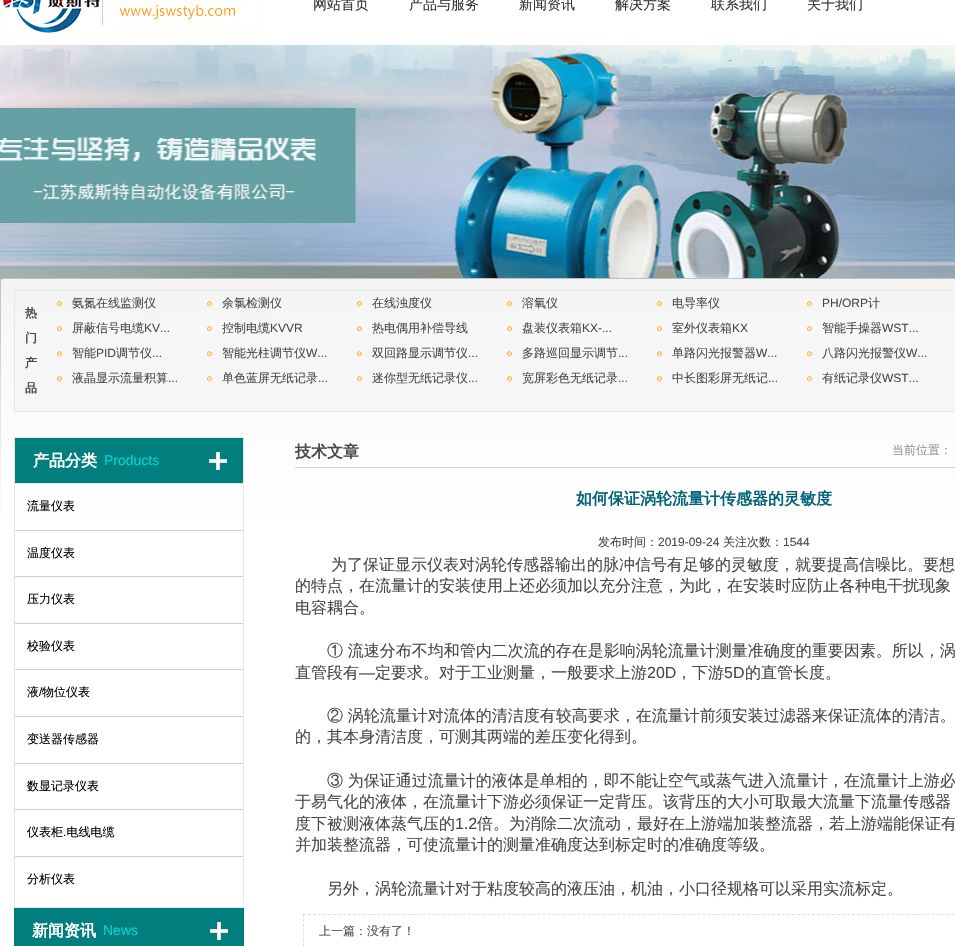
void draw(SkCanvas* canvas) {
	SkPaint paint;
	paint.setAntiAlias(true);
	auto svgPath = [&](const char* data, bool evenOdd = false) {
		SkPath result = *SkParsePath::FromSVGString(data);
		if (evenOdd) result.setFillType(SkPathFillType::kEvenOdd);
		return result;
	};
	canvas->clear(0xffffffff);
	canvas->drawImageRect(SkImages::DeferredFromEncodedData(SkData::MakeFromFileName("img1.png")), SkRect::MakeXYWH(0, 0, 263, 39), SkSamplingOptions());
	SkFont f1(fontMgr->matchFamilyStyle("WenQuanYi Zen Hei", SkFontStyle(500, SkFontStyle::kNormal_Width, SkFontStyle::kUpright_Slant)), 14);
	f1.setSubpixel(true);
	paint.setColor(0xff333333);
	canvas->drawString("网站首页", 313, 9, f1, paint);
	canvas->drawString("产品与服务", 409, 9, f1, paint);
	canvas->drawString("新闻资讯", 519, 9, f1, paint);
	canvas->drawString("解决方案", 615, 9, f1, paint);
	canvas->drawString("联系我们", 711, 9, f1, paint);
	canvas->drawString("关于我们", 807, 9, f1, paint);
	canvas->drawImageRect(SkImages::DeferredFromEncodedData(SkData::MakeFromFileName("img2.png")), SkRect::MakeXYWH(0, 45, 955, 234), SkSamplingOptions());
	canvas->drawImageRect(SkImages::DeferredFromEncodedData(SkData::MakeFromFileName("img3.png")), SkRect::MakeXYWH(0, 278, 955, 240), SkSamplingOptions());
	paint.setColor(0xfff6f6f6);
	canvas->drawRect(SkRect::MakeXYWH(15, 334, 940, 77), paint);
	paint.setStroke(true);
	paint.setStrokeWidth(1);
	paint.setColor(0xffe6e6e6);
	canvas->drawRect(SkRect::MakeXYWH(14.5, 290.5, 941, 121), paint);
	canvas->drawImageRect(SkImages::DeferredFromEncodedData(SkData::MakeFromFileName("img4.png")), SkRect::MakeXYWH(57, 301, 5, 6), SkSamplingOptions());
	SkFont f2(fontMgr->matchFamilyStyle("WenQuanYi Zen Hei", SkFontStyle(500, SkFontStyle::kNormal_Width, SkFontStyle::kUpright_Slant)), 12);
	f2.setSubpixel(true);
	paint.setStroke(false);
	paint.setColor(0xff484848);
	canvas->drawString("氨氮在线监测仪", 72, 307, f2, paint);
	canvas->drawImageRect(SkImages::DeferredFromEncodedData(SkData::MakeFromFileName("img4.png")), SkRect::MakeXYWH(207, 301, 5, 6), SkSamplingOptions());
	canvas->drawString("余氯检测仪", 222, 307, f2, paint);
	canvas->drawImageRect(SkImages::DeferredFromEncodedData(SkData::MakeFromFileName("img4.png")), SkRect::MakeXYWH(357, 301, 5, 6), SkSamplingOptions());
	canvas->drawString("在线浊度仪", 372, 307, f2, paint);
	canvas->drawImageRect(SkImages::DeferredFromEncodedData(SkData::MakeFromFileName("img4.png")), SkRect::MakeXYWH(507, 301, 5, 6), SkSamplingOptions());
	canvas->drawString("溶氧仪", 522, 307, f2, paint);
	canvas->drawImageRect(SkImages::DeferredFromEncodedData(SkData::MakeFromFileName("img4.png")), SkRect::MakeXYWH(657, 301, 5, 6), SkSamplingOptions());
	canvas->drawString("电导率仪", 672, 307, f2, paint);
	canvas->drawImageRect(SkImages::DeferredFromEncodedData(SkData::MakeFromFileName("img4.png")), SkRect::MakeXYWH(807, 301, 5, 6), SkSamplingOptions());
	SkFont f3(fontMgr->matchFamilyStyle("Liberation Sans", SkFontStyle::Normal()), 12);
	f3.setSubpixel(true);
	canvas->drawString("PH/ORP", 822, 307, f3, paint);
	canvas->drawString("计", 868, 307, f2, paint);
	SkFont f4(fontMgr->matchFamilyStyle("WenQuanYi Zen Hei", SkFontStyle::Bold()), 12);
	f4.setSubpixel(true);
	canvas->drawString("热", 25, 317, f4, paint);
	canvas->drawString("门", 25, 342, f4, paint);
	canvas->drawString("产", 25, 367, f4, paint);
	canvas->drawString("品", 25, 392, f4, paint);
	canvas->drawImageRect(SkImages::DeferredFromEncodedData(SkData::MakeFromFileName("img4.png")), SkRect::MakeXYWH(57, 326, 5, 6), SkSamplingOptions());
	canvas->drawString("屏蔽信号电缆", 72, 332, f2, paint);
	canvas->drawString("KV...", 144, 332, f3, paint);
	canvas->drawImageRect(SkImages::DeferredFromEncodedData(SkData::MakeFromFileName("img4.png")), SkRect::MakeXYWH(207, 326, 5, 6), SkSamplingOptions());
	canvas->drawString("控制电缆", 222, 332, f2, paint);
	canvas->drawString("KVVR", 270, 332, f3, paint);
	canvas->drawImageRect(SkImages::DeferredFromEncodedData(SkData::MakeFromFileName("img4.png")), SkRect::MakeXYWH(357, 326, 5, 6), SkSamplingOptions());
	canvas->drawString("热电偶用补偿导线", 372, 332, f2, paint);
	canvas->drawImageRect(SkImages::DeferredFromEncodedData(SkData::MakeFromFileName("img4.png")), SkRect::MakeXYWH(507, 326, 5, 6), SkSamplingOptions());
	canvas->drawString("盘装仪表箱", 522, 332, f2, paint);
	canvas->drawString("KX-...", 582, 332, f3, paint);
	canvas->drawImageRect(SkImages::DeferredFromEncodedData(SkData::MakeFromFileName("img4.png")), SkRect::MakeXYWH(657, 326, 5, 6), SkSamplingOptions());
	canvas->drawString("室外仪表箱", 672, 332, f2, paint);
	canvas->drawString("KX", 732, 332, f3, paint);
	canvas->drawImageRect(SkImages::DeferredFromEncodedData(SkData::MakeFromFileName("img4.png")), SkRect::MakeXYWH(807, 326, 5, 6), SkSamplingOptions());
	canvas->drawString("智能手操器", 822, 332, f2, paint);
	canvas->drawString("WST...", 882, 332, f3, paint);
	canvas->drawImageRect(SkImages::DeferredFromEncodedData(SkData::MakeFromFileName("img4.png")), SkRect::MakeXYWH(57, 351, 5, 6), SkSamplingOptions());
	canvas->drawString("智能", 72, 357, f2, paint);
	canvas->drawString("PID", 96, 357, f3, paint);
	canvas->drawString("调节仪", 116, 357, f2, paint);
	canvas->drawString("...", 152, 357, f3, paint);
	canvas->drawImageRect(SkImages::DeferredFromEncodedData(SkData::MakeFromFileName("img4.png")), SkRect::MakeXYWH(207, 351, 5, 6), SkSamplingOptions());
	canvas->drawString("智能光柱调节仪", 222, 357, f2, paint);
	canvas->drawString("W...", 306, 357, f3, paint);
	canvas->drawImageRect(SkImages::DeferredFromEncodedData(SkData::MakeFromFileName("img4.png")), SkRect::MakeXYWH(357, 351, 5, 6), SkSamplingOptions());
	canvas->drawString("双回路显示调节仪", 372, 357, f2, paint);
	canvas->drawString("...", 468, 357, f3, paint);
	canvas->drawImageRect(SkImages::DeferredFromEncodedData(SkData::MakeFromFileName("img4.png")), SkRect::MakeXYWH(507, 351, 5, 6), SkSamplingOptions());
	canvas->drawString("多路巡回显示调节", 522, 357, f2, paint);
	canvas->drawString("...", 618, 357, f3, paint);
	canvas->drawImageRect(SkImages::DeferredFromEncodedData(SkData::MakeFromFileName("img4.png")), SkRect::MakeXYWH(657, 351, 5, 6), SkSamplingOptions());
	canvas->drawString("单路闪光报警器", 672, 357, f2, paint);
	canvas->drawString("W...", 756, 357, f3, paint);
	canvas->drawImageRect(SkImages::DeferredFromEncodedData(SkData::MakeFromFileName("img4.png")), SkRect::MakeXYWH(807, 351, 5, 6), SkSamplingOptions());
	canvas->drawString("八路闪光报警仪", 822, 357, f2, paint);
	canvas->drawString("W...", 906, 357, f3, paint);
	canvas->drawImageRect(SkImages::DeferredFromEncodedData(SkData::MakeFromFileName("img4.png")), SkRect::MakeXYWH(57, 376, 5, 6), SkSamplingOptions());
	canvas->drawString("液晶显示流量积算", 72, 382, f2, paint);
	canvas->drawString("...", 168, 382, f3, paint);
	canvas->drawImageRect(SkImages::DeferredFromEncodedData(SkData::MakeFromFileName("img4.png")), SkRect::MakeXYWH(207, 376, 5, 6), SkSamplingOptions());
	canvas->drawString("单色蓝屏无纸记录", 222, 382, f2, paint);
	canvas->drawString("...", 318, 382, f3, paint);
	canvas->drawImageRect(SkImages::DeferredFromEncodedData(SkData::MakeFromFileName("img4.png")), SkRect::MakeXYWH(357, 376, 5, 6), SkSamplingOptions());
	canvas->drawString("迷你型无纸记录仪", 372, 382, f2, paint);
	canvas->drawString("...", 468, 382, f3, paint);
	canvas->drawImageRect(SkImages::DeferredFromEncodedData(SkData::MakeFromFileName("img4.png")), SkRect::MakeXYWH(507, 376, 5, 6), SkSamplingOptions());
	canvas->drawString("宽屏彩色无纸记录", 522, 382, f2, paint);
	canvas->drawString("...", 618, 382, f3, paint);
	canvas->drawImageRect(SkImages::DeferredFromEncodedData(SkData::MakeFromFileName("img4.png")), SkRect::MakeXYWH(657, 376, 5, 6), SkSamplingOptions());
	canvas->drawString("中长图彩屏无纸记", 672, 382, f2, paint);
	canvas->drawString("...", 768, 382, f3, paint);
	canvas->drawImageRect(SkImages::DeferredFromEncodedData(SkData::MakeFromFileName("img4.png")), SkRect::MakeXYWH(807, 376, 5, 6), SkSamplingOptions());
	canvas->drawString("有纸记录仪", 822, 382, f2, paint);
	canvas->drawString("WST...", 882, 382, f3, paint);
	paint.setStroke(true);
	paint.setColor(0xffe7e7e7);
	canvas->drawRect(SkRect::MakeXYWH(14.5, 437.5, 229, 470), paint);
	paint.setStroke(false);
	paint.setColor(0xff017f7e);
	canvas->drawRect(SkRect::MakeXYWH(15, 438, 228, 45), paint);
	paint.setColor(0xffe7e7e7);
	canvas->drawRect(SkRect::MakeXYWH(15, 483, 228, 1), paint);
	SkFont f5(fontMgr->matchFamilyStyle("WenQuanYi Zen Hei", SkFontStyle::Bold()), 16);
	f5.setSubpixel(true);
	paint.setColor(0xffffffff);
	canvas->drawString("产品分类", 33, 466, f5, paint);
	SkFont f6(fontMgr->matchFamilyStyle("Liberation Sans", SkFontStyle::Normal()), 14);
	f6.setSubpixel(true);
	paint.setColor(0xff03d5d3);
	canvas->drawString("Products", 104, 465, f6, paint);
	canvas->drawImageRect(SkImages::DeferredFromEncodedData(SkData::MakeFromFileName("img5.png")), SkRect::MakeXYWH(209, 452, 18, 18), SkSamplingOptions());
	paint.setColor(0xffcccccc);
	canvas->drawRect(SkRect::MakeXYWH(15, 530, 228, 1), paint);
	paint.setColor(0xff000000);
	canvas->drawString("流量仪表", 27, 510, f2, paint);
	paint.setColor(0xffcccccc);
	canvas->drawRect(SkRect::MakeXYWH(15, 576, 228, 1), paint);
	paint.setColor(0xff000000);
	canvas->drawString("温度仪表", 27, 557, f2, paint);
	paint.setColor(0xffcccccc);
	canvas->drawRect(SkRect::MakeXYWH(15, 623, 228, 1), paint);
	paint.setColor(0xff000000);
	canvas->drawString("压力仪表", 27, 603, f2, paint);
	paint.setColor(0xffcccccc);
	canvas->drawRect(SkRect::MakeXYWH(15, 669, 228, 1), paint);
	paint.setColor(0xff000000);
	canvas->drawString("校验仪表", 27, 650, f2, paint);
	paint.setColor(0xffcccccc);
	canvas->drawRect(SkRect::MakeXYWH(15, 716, 228, 1), paint);
	paint.setColor(0xff000000);
	canvas->drawString("液", 27, 696, f2, paint);
	canvas->drawString("/", 39, 696, f3, paint);
	canvas->drawString("物位仪表", 42, 696, f2, paint);
	paint.setColor(0xffcccccc);
	canvas->drawRect(SkRect::MakeXYWH(15, 763, 228, 1), paint);
	paint.setColor(0xff000000);
	canvas->drawString("变送器传感器", 27, 743, f2, paint);
	paint.setColor(0xffcccccc);
	canvas->drawRect(SkRect::MakeXYWH(15, 809, 228, 1), paint);
	paint.setColor(0xff000000);
	canvas->drawString("数显记录仪表", 27, 790, f2, paint);
	paint.setColor(0xffcccccc);
	canvas->drawRect(SkRect::MakeXYWH(15, 856, 228, 1), paint);
	paint.setColor(0xff000000);
	canvas->drawString("仪表柜 电线电缆", 27, 836, f2, paint);
	canvas->drawString(".", 63, 836, f3, paint);
	canvas->drawString("分析仪表", 27, 883, f2, paint);
	paint.setColor(0xff017f7e);
	canvas->drawRect(SkRect::MakeXYWH(14, 908, 230, 38), paint);
	paint.setColor(0xffffffff);
	canvas->drawString("新闻资讯", 32, 936, f5, paint);
	paint.setColor(0xff03d5d3);
	canvas->drawString("News", 103, 935, f6, paint);
	canvas->drawImageRect(SkImages::DeferredFromEncodedData(SkData::MakeFromFileName("img5.png")), SkRect::MakeXYWH(210, 922, 18, 18), SkSamplingOptions());
	paint.setColor(0xffd6d6d6);
	canvas->drawRect(SkRect::MakeXYWH(295, 467, 660, 1), paint);
	paint.setColor(0xff484848);
	canvas->drawString("技术文章", 295, 457, f5, paint);
	paint.setColor(0xff939393);
	canvas->drawString("当前位置：", 892, 454, f2, paint);
	paint.setColor(0xff026378);
	canvas->drawString("如何保证涡轮流量计传感器的灵敏度", 576, 504, f5, paint);
	paint.setColor(0xff484848);
	canvas->drawString("发布时间：", 598, 546, f2, paint);
	canvas->drawString("2019-09-24", 658, 546, f3, paint);
	canvas->drawString("关注次数：", 723, 546, f2, paint);
	canvas->drawString("1544", 783, 546, f3, paint);
	SkFont f7(fontMgr->matchFamilyStyle("WenQuanYi Zen Hei", SkFontStyle(500, SkFontStyle::kNormal_Width, SkFontStyle::kUpright_Slant)), 16);
	f7.setSubpixel(true);
	canvas->drawString("为了保证显示仪表对涡轮传感器输出的脉冲信号有足够的灵敏度，就要提高信噪比。要想", 331, 570, f7, paint);
	canvas->drawString("的特点，在流量计的安装使用上还必须加以充分注意，为此，在安装时应防止各种电干扰现象", 295, 591, f7, paint);
	canvas->drawString("电容耦合。", 295, 613, f7, paint);
	canvas->drawString("① 流速分布不均和管内二次流的存在是影响涡轮流量计测量准确度的重要因素。所以，涡", 327, 656, f7, paint);
	canvas->drawString("直管段有", 295, 678, f7, paint);
	SkFont f8(fontMgr->matchFamilyStyle("Liberation Sans", SkFontStyle::Normal()), 16);
	f8.setSubpixel(true);
	canvas->drawString("—", 359, 678, f8, paint);
	canvas->drawString("定要求。对于工业测量，一般要求上游", 375, 678, f7, paint);
	canvas->drawString("20D", 647, 678, f8, paint);
	canvas->drawString("，下游", 676, 678, f7, paint);
	canvas->drawString("5D", 724, 678, f8, paint);
	canvas->drawString("的直管长度。", 745, 678, f7, paint);
	canvas->drawString("② 涡轮流量计对流体的清洁度有较高要求，在流量计前须安装过滤器来保证流体的清洁。", 327, 721, f7, paint);
	canvas->drawString("的，其本身清洁度，可测其两端的差压变化得到。", 295, 742, f7, paint);
	canvas->drawString("③ 为保证通过流量计的液体是单相的，即不能让空气或蒸气进入流量计，在流量计上游必", 327, 786, f7, paint);
	canvas->drawString("于易气化的液体，在流量计下游必须保证一定背压。该背压的大小可取最大流量下流量传感器", 295, 807, f7, paint);
	canvas->drawString("度下被测液体蒸气压的", 295, 829, f7, paint);
	canvas->drawString("1.2", 455, 829, f8, paint);
	canvas->drawString("倍。为消除二次流动，最好在上游端加装整流器，若上游端能保证有", 477, 829, f7, paint);
	canvas->drawString("并加装整流器，可使流量计的测量准确度达到标定时的准确度等级。", 295, 850, f7, paint);
	canvas->drawString("另外，涡轮流量计对于粘度较高的液压油，机油，小口径规格可以采用实流标定。", 327, 894, f7, paint);
	paint.setStroke(true);
	paint.setColor(0xffdfdfdf);
	paint.setPathEffect(SkDashPathEffect::Make({{3, 1.99f}}, 0));
	canvas->drawPath(svgPath("M303 914.5H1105"), paint);
	paint.setPathEffect(nullptr);
	paint.setPathEffect(SkDashPathEffect::Make({{3, 1.85f}}, 0));
	canvas->drawPath(svgPath("M303.5 914V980"), paint);
	paint.setPathEffect(nullptr);
	paint.setStroke(false);
	paint.setColor(0xff484848);
	canvas->drawString("上一篇：没有了！", 319, 935, f2, paint);
}
